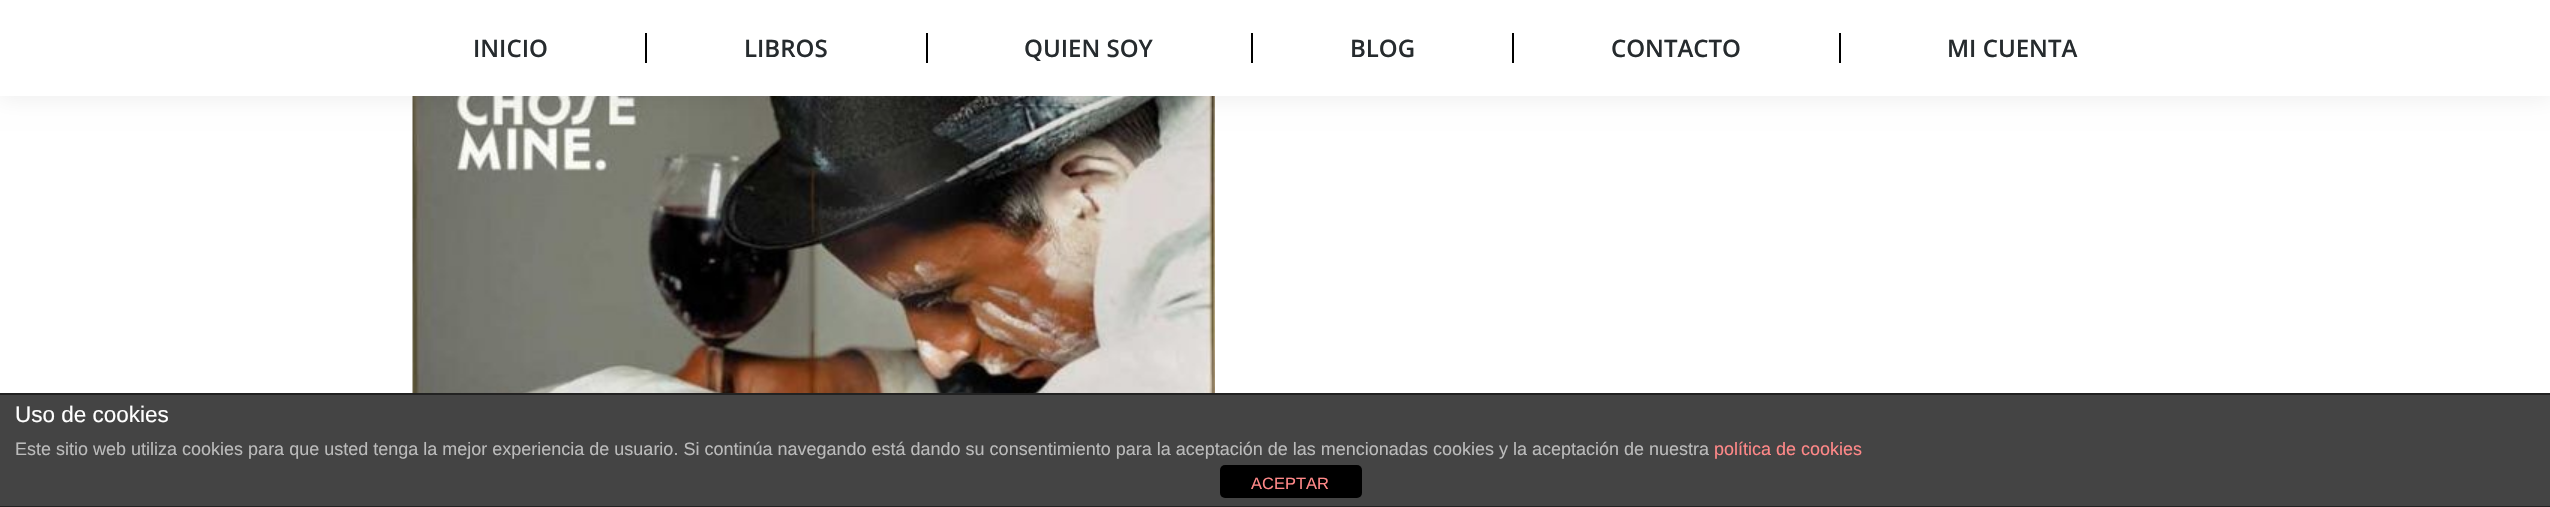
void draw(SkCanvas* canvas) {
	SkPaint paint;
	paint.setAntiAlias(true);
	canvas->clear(0xffffffff);
	canvas->drawImageRect(SkImages::DeferredFromEncodedData(SkData::MakeFromFileName("img1.png")), SkRect::MakeXYWH(412, 96, 803, 297), SkSamplingOptions());
	paint.setColor(0x12000000);
	paint.setMaskFilter(SkMaskFilter::MakeBlur(kNormal_SkBlurStyle, 11));
	canvas->drawRect(SkRect::MakeXYWH(-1, -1, 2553, 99), paint);
	paint.setMaskFilter(nullptr);
	paint.setColor(0xffffffff);
	canvas->drawRect(SkRect::MakeXYWH(0, 0, 2550, 96), paint);
	SkFont f1(fontMgr->matchFamilyStyle("Open Sans", SkFontStyle(600, SkFontStyle::kNormal_Width, SkFontStyle::kUpright_Slant)), 24);
	f1.setSubpixel(true);
	paint.setColor(0xff262b2e);
	canvas->drawString("INICIO", 473, 57, f1, paint);
	paint.setColor(0xff000000);
	canvas->drawRect(SkRect::MakeXYWH(645, 33, 2, 30), paint);
	paint.setColor(0xff262b2e);
	canvas->drawString("LIBROS", 744, 57, f1, paint);
	paint.setColor(0xff000000);
	canvas->drawRect(SkRect::MakeXYWH(926, 33, 2, 30), paint);
	paint.setColor(0xff262b2e);
	canvas->drawString("QUIEN SOY", 1024, 57, f1, paint);
	paint.setColor(0xff000000);
	canvas->drawRect(SkRect::MakeXYWH(1251, 33, 2, 30), paint);
	paint.setColor(0xff262b2e);
	canvas->drawString("BLOG", 1350, 57, f1, paint);
	paint.setColor(0xff000000);
	canvas->drawRect(SkRect::MakeXYWH(1512, 33, 2, 30), paint);
	paint.setColor(0xff262b2e);
	canvas->drawString("CONTACTO", 1611, 57, f1, paint);
	paint.setColor(0xff000000);
	canvas->drawRect(SkRect::MakeXYWH(1839, 33, 2, 30), paint);
	paint.setColor(0xff262b2e);
	canvas->drawString("MI CUENTA", 1947, 57, f1, paint);
	paint.setColor(0xff444444);
	canvas->drawRect(SkRect::MakeXYWH(0, 395, 2550, 111), paint);
	paint.setColor(0xff222222);
	canvas->drawRect(SkRect::MakeXYWH(0, 393, 2550, 2), paint);
	canvas->drawRect(SkRect::MakeXYWH(0, 506, 2550, 1), paint);
	SkFont f2(fontMgr->matchFamilyStyle("Liberation Sans", SkFontStyle::Normal()), 22.5);
	f2.setSubpixel(true);
	paint.setColor(0xffffffff);
	canvas->drawString("Uso de cookies", 15, 422, f2, paint);
	SkFont f3(fontMgr->matchFamilyStyle("Liberation Sans", SkFontStyle::Normal()), 18);
	f3.setSubpixel(true);
	paint.setColor(0xffbbbbbb);
	canvas->drawString("Este sitio web utiliza cookies para que usted tenga la mejor experiencia de usuario. Si continúa navegando está dando su consentimiento para la aceptación de las mencionadas cookies y la aceptación de nuestra", 15, 455, f3, paint);
	paint.setColor(0xffff8888);
	canvas->drawString("política de cookies", 1714, 455, f3, paint);
	paint.setColor(0xff000000);
	canvas->drawRoundRect(SkRect::MakeXYWH(1220, 465, 142, 33), 5, 5, paint);
	SkFont f4(fontMgr->matchFamilyStyle("Liberation Sans", SkFontStyle::Normal()), 16.5);
	f4.setSubpixel(true);
	paint.setColor(0xffff8888);
	canvas->drawString("ACEPTAR", 1251, 489, f4, paint);
}
